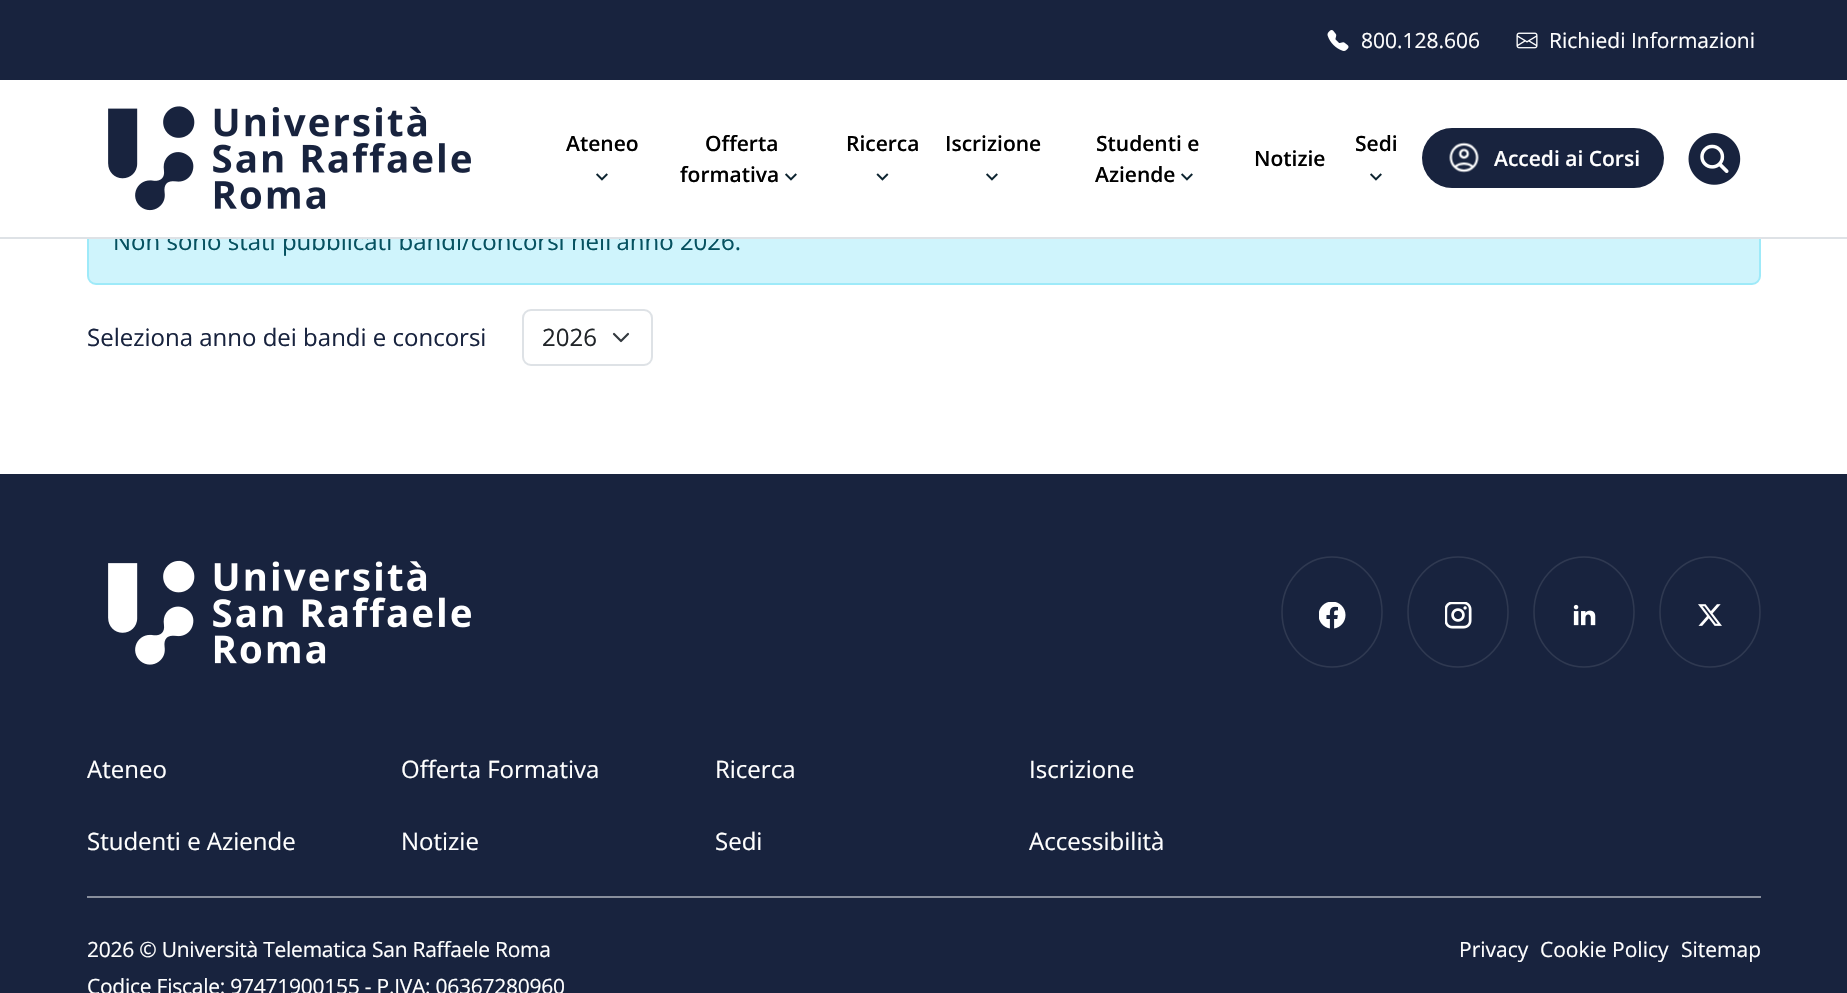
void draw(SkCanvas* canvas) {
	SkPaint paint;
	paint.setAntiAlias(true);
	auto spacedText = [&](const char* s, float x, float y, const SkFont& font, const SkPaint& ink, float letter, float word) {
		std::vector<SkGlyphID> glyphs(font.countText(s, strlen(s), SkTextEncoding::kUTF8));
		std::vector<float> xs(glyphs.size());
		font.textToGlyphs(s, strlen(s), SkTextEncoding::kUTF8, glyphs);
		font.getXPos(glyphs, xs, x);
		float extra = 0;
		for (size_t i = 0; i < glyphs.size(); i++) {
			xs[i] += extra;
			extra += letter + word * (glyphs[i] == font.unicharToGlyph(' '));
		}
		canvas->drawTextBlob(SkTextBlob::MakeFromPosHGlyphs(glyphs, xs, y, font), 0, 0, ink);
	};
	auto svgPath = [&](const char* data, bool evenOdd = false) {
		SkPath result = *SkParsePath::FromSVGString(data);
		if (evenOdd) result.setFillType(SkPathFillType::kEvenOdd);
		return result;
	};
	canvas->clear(0xffffffff);
	paint.setColor(0xffcff4fc);
	canvas->drawRoundRect(SkRect::MakeXYWH(88, 199, 1672, 85), 8, 8, paint);
	paint.setStroke(true);
	paint.setStrokeWidth(2);
	paint.setColor(0xff9eeaf9);
	canvas->drawRoundRect(SkRect::MakeXYWH(88, 199, 1672, 85), 8, 8, paint);
	SkFont f1(fontMgr->matchFamilyStyle("Open Sans", SkFontStyle::Normal()), 24);
	f1.setSubpixel(true);
	paint.setStroke(false);
	paint.setColor(0xff055160);
	canvas->drawString("Non sono stati pubblicati bandi/concorsi nell'anno 2026.", 113, 250, f1, paint);
	paint.setColor(0xffffffff);
	canvas->drawRect(SkRect::MakeXYWH(87, 198, 1674, 39), paint);
	paint.setColor(0xffdee2e6);
	canvas->drawRect(SkRect::MakeXYWH(0, 237, 1847, 2), paint);
	paint.setColor(0xff18233e);
	canvas->drawRect(SkRect::MakeXYWH(0, 0, 1847, 80), paint);
	canvas->drawImageRect(SkImages::DeferredFromEncodedData(SkData::MakeFromFileName("img1.png")), SkRect::MakeXYWH(1327, 30, 22, 21), SkSamplingOptions());
	SkFont f2(fontMgr->matchFamilyStyle("Open Sans", SkFontStyle::Normal()), 21);
	f2.setSubpixel(true);
	paint.setColor(0xffffffff);
	canvas->drawString("800.128.606", 1361, 48, f2, paint);
	canvas->drawImageRect(SkImages::DeferredFromEncodedData(SkData::MakeFromFileName("img2.png")), SkRect::MakeXYWH(1516, 32, 22, 17), SkSamplingOptions());
	canvas->drawString("Richiedi Informazioni", 1549, 48, f2, paint);
	canvas->drawImageRect(SkImages::DeferredFromEncodedData(SkData::MakeFromFileName("img3.png")), SkRect::MakeXYWH(108, 106, 363, 105), SkSamplingOptions());
	SkFont f3(fontMgr->matchFamilyStyle("Open Sans", SkFontStyle(600, SkFontStyle::kNormal_Width, SkFontStyle::kUpright_Slant)), 21);
	f3.setSubpixel(true);
	paint.setColor(0xff000000);
	canvas->drawString("Ateneo", 566, 151, f3, paint);
	canvas->drawImageRect(SkImages::DeferredFromEncodedData(SkData::MakeFromFileName("img4.png")), SkRect::MakeXYWH(596, 173, 12, 8), SkSamplingOptions());
	canvas->drawString("Offerta", 705, 151, f3, paint);
	canvas->drawString("formativa", 680, 182, f3, paint);
	canvas->drawImageRect(SkImages::DeferredFromEncodedData(SkData::MakeFromFileName("img4.png")), SkRect::MakeXYWH(785, 173, 12, 8), SkSamplingOptions());
	canvas->drawString("Ricerca", 846, 151, f3, paint);
	canvas->drawImageRect(SkImages::DeferredFromEncodedData(SkData::MakeFromFileName("img5.png")), SkRect::MakeXYWH(876, 173, 13, 8), SkSamplingOptions());
	canvas->drawString("Iscrizione", 945, 151, f3, paint);
	canvas->drawImageRect(SkImages::DeferredFromEncodedData(SkData::MakeFromFileName("img4.png")), SkRect::MakeXYWH(986, 173, 12, 8), SkSamplingOptions());
	canvas->drawString("Studenti e", 1096, 151, f3, paint);
	canvas->drawString("Aziende", 1095, 182, f3, paint);
	canvas->drawImageRect(SkImages::DeferredFromEncodedData(SkData::MakeFromFileName("img4.png")), SkRect::MakeXYWH(1181, 173, 12, 8), SkSamplingOptions());
	canvas->drawString("Sedi", 1355, 151, f3, paint);
	canvas->drawImageRect(SkImages::DeferredFromEncodedData(SkData::MakeFromFileName("img4.png")), SkRect::MakeXYWH(1370, 173, 12, 8), SkSamplingOptions());
	canvas->drawString("Notizie", 1254, 166, f3, paint);
	paint.setColor(0xff18233e);
	canvas->drawRoundRect(SkRect::MakeXYWH(1422, 128, 242, 60), 30, 30, paint);
	canvas->drawImageRect(SkImages::DeferredFromEncodedData(SkData::MakeFromFileName("img6.png")), SkRect::MakeXYWH(1449, 142, 30, 31), SkSamplingOptions());
	paint.setColor(0xffffffff);
	canvas->drawString("Accedi ai Corsi", 1494, 166, f3, paint);
	canvas->drawImageRect(SkImages::DeferredFromEncodedData(SkData::MakeFromFileName("img7.png")), SkRect::MakeXYWH(1688, 133, 53, 52), SkSamplingOptions());
	paint.setColor(0xff18233e);
	canvas->drawString("Seleziona anno dei bandi e concorsi", 87, 346, f1, paint);
	paint.setStroke(true);
	paint.setStrokeWidth(2.2);
	paint.setStrokeCap(SkPaint::kRound_Cap);
	paint.setStrokeJoin(SkPaint::kRound_Join);
	paint.setColor(0xff343a40);
	canvas->drawPath(svgPath("M614 334L621 341L628 334"), paint);
	paint.setStrokeWidth(2);
	paint.setStrokeCap(SkPaint::kButt_Cap);
	paint.setStrokeJoin(SkPaint::kMiter_Join);
	paint.setColor(0xffdee2e6);
	canvas->drawRoundRect(SkRect::MakeXYWH(523, 310, 129, 55), 8, 8, paint);
	paint.setStroke(false);
	paint.setColor(0xff212529);
	canvas->drawString("2026", 542, 346, f1, paint);
	paint.setColor(0xff18233e);
	canvas->drawRect(SkRect::MakeXYWH(0, 474, 1847, 519), paint);
	canvas->drawImageRect(SkImages::DeferredFromEncodedData(SkData::MakeFromFileName("img8.png")), SkRect::MakeXYWH(108, 560, 363, 105), SkSamplingOptions());
	paint.setStroke(true);
	paint.setStrokeWidth(1.5);
	paint.setColor(0xff2f3951);
	canvas->drawPath(svgPath("M1332 557C1360 557 1382 582 1382 612C1382 642 1360 667 1332 667C1304 667 1282 642 1282 612C1282 582 1304 557 1332 557Z"), paint);
	canvas->drawImageRect(SkImages::DeferredFromEncodedData(SkData::MakeFromFileName("img9.png")), SkRect::MakeXYWH(1319, 602, 27, 27), SkSamplingOptions());
	canvas->drawPath(svgPath("M1458 557C1486 557 1508 582 1508 612C1508 642 1486 667 1458 667C1430 667 1408 642 1408 612C1408 582 1430 557 1458 557Z"), paint);
	canvas->drawImageRect(SkImages::DeferredFromEncodedData(SkData::MakeFromFileName("img10.png")), SkRect::MakeXYWH(1445, 602, 27, 27), SkSamplingOptions());
	canvas->drawPath(svgPath("M1584 557C1612 557 1634 582 1634 612C1634 642 1612 667 1584 667C1556 667 1534 642 1534 612C1534 582 1556 557 1584 557Z"), paint);
	canvas->drawImageRect(SkImages::DeferredFromEncodedData(SkData::MakeFromFileName("img11.png")), SkRect::MakeXYWH(1573, 604, 23, 22), SkSamplingOptions());
	canvas->drawPath(svgPath("M1710 557C1738 557 1760 582 1760 612C1760 642 1738 667 1710 667C1682 667 1660 642 1660 612C1660 582 1682 557 1710 557Z"), paint);
	canvas->drawImageRect(SkImages::DeferredFromEncodedData(SkData::MakeFromFileName("img12.png")), SkRect::MakeXYWH(1698, 604, 24, 22), SkSamplingOptions());
	paint.setStroke(false);
	paint.setColor(0xffffffff);
	canvas->drawString("Ateneo", 87, 778, f1, paint);
	canvas->drawString("Offerta Formativa", 401, 778, f1, paint);
	canvas->drawString("Ricerca", 715, 778, f1, paint);
	canvas->drawString("Iscrizione", 1029, 778, f1, paint);
	canvas->drawString("Studenti e Aziende", 87, 850, f1, paint);
	canvas->drawString("Notizie", 401, 850, f1, paint);
	canvas->drawString("Sedi", 715, 850, f1, paint);
	canvas->drawString("Accessibilità", 1029, 850, f1, paint);
	paint.setColor(0xff888e9c);
	canvas->drawRect(SkRect::MakeXYWH(87, 896, 1674, 2), paint);
	paint.setColor(0xffffffff);
	spacedText("2026 © Università Telematica San Raffaele Roma", 87, 957, f2, paint, -0.25, 0);
	spacedText("Codice Fiscale: 97471900155 - P.IVA: 06367280960", 87, 994, f2, paint, -0.25, 0);
	canvas->drawString("Privacy", 1459, 957, f2, paint);
	canvas->drawString("Cookie Policy", 1540, 957, f2, paint);
	canvas->drawString("Sitemap", 1681, 957, f2, paint);
}
